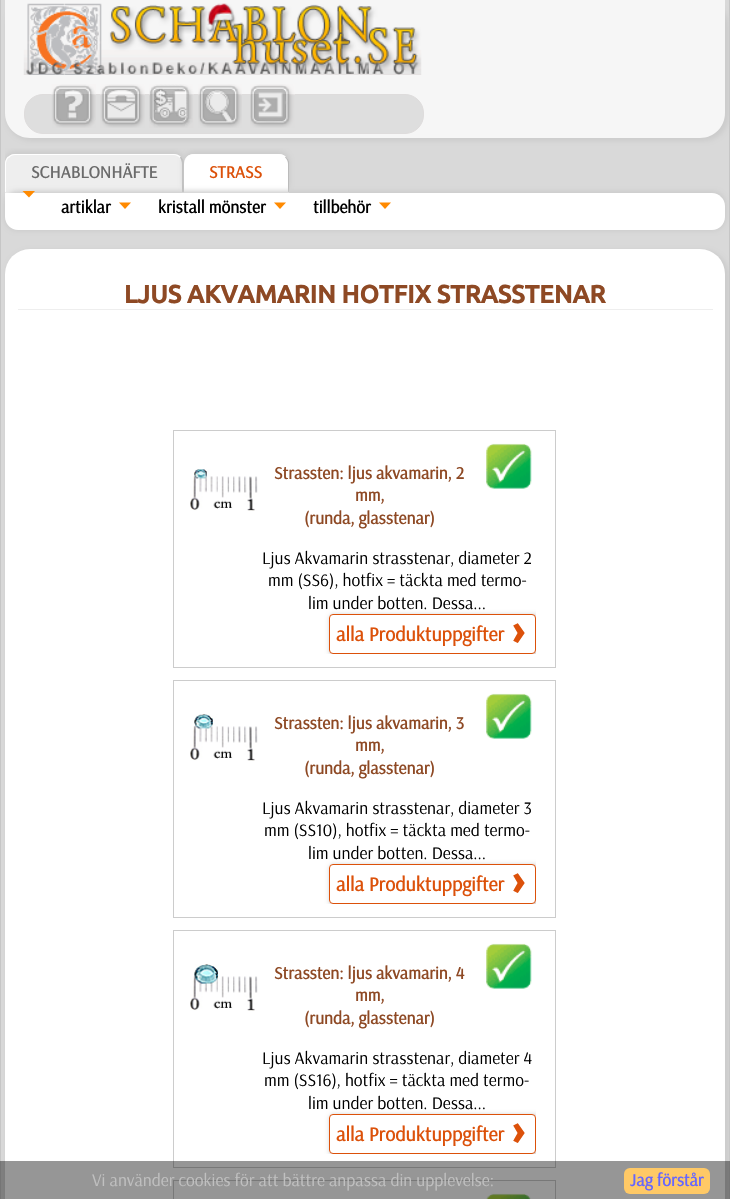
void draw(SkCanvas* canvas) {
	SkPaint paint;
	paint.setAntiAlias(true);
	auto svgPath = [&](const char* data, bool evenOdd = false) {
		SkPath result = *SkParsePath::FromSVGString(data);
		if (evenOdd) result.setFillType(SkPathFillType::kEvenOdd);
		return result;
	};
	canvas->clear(0xffd9d9d9);
	paint.setColor(0xffc6c6c6);
	canvas->drawRect(SkRect::MakeXYWH(729, 0, 1, 1199), paint);
	canvas->drawRect(SkRect::MakeXYWH(0, 0, 1, 1199), paint);
	paint.setColor(0xffcccccc);
	paint.setMaskFilter(SkMaskFilter::MakeBlur(kNormal_SkBlurStyle, 2.5));
	canvas->drawRoundRect(SkRect::MakeXYWH(6, 1, 723, 140), 26, 26, paint);
	paint.setMaskFilter(nullptr);
	paint.setColor(0xfff6f6f6);
	canvas->drawPath(svgPath("M5 0H725V113C725 127 714 138 700 138H30C16 138 5 127 5 113Z"), paint);
	canvas->drawImageRect(SkImages::DeferredFromEncodedData(SkData::MakeFromFileName("img1.png")), SkRect::MakeXYWH(23, 3, 399, 72), SkSamplingOptions());
	paint.setColor(0xffdedede);
	canvas->drawRoundRect(SkRect::MakeXYWH(24.5, 94.5, 399, 39), 18.5, 18.5, paint);
	paint.setStroke(true);
	paint.setStrokeWidth(1);
	paint.setColor(0xffdedcdc);
	canvas->drawRoundRect(SkRect::MakeXYWH(24.5, 94.5, 399, 39), 18.5, 18.5, paint);
	canvas->drawImageRect(SkImages::DeferredFromEncodedData(SkData::MakeFromFileName("img2.png")), SkRect::MakeXYWH(51, 84, 45, 44), SkSamplingOptions());
	canvas->drawImageRect(SkImages::DeferredFromEncodedData(SkData::MakeFromFileName("img3.png")), SkRect::MakeXYWH(100, 84, 45, 44), SkSamplingOptions());
	canvas->drawImageRect(SkImages::DeferredFromEncodedData(SkData::MakeFromFileName("img4.png")), SkRect::MakeXYWH(149, 84, 45, 44), SkSamplingOptions());
	canvas->drawImageRect(SkImages::DeferredFromEncodedData(SkData::MakeFromFileName("img5.png")), SkRect::MakeXYWH(198, 84, 44, 44), SkSamplingOptions());
	canvas->drawImageRect(SkImages::DeferredFromEncodedData(SkData::MakeFromFileName("img6.png")), SkRect::MakeXYWH(250, 84, 45, 44), SkSamplingOptions());
	canvas->save();
	canvas->clipRect(SkRect::MakeXYWH(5, 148, 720, 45));
	paint.setStroke(false);
	paint.setColor(0xffcccccc);
	paint.setMaskFilter(SkMaskFilter::MakeBlur(kNormal_SkBlurStyle, 2.5));
	canvas->drawRoundRect(SkRect::MakeXYWH(4, 151, 181, 42), 11, 11, paint);
	paint.setMaskFilter(nullptr);
	canvas->restore();
	paint.setColor(0xffeeeeee);
	canvas->drawPath(svgPath("M15 154H174C179.5 154 184 158.5 184 164V193H5V164C5 158.5 9.5 154 15 154Z"), paint);
	paint.setColor(0xffffffff);
	canvas->drawPath(svgPath("M15 154H174C176 154 179 155 181 157L180 158C178 156 176 155 174 155H15C13 155 10 156 9 158L8 157C10 155 12 154 15 154Z"), paint);
	paint.setColor(0xffbbbbbb);
	canvas->drawPath(svgPath("M181 156.5C182 158 183.5 159.5 184 161.5V192H182V164C182 161.5 181 159 180 157.5Z"), paint);
	paint.setColor(0xffffffff);
	canvas->drawPath(svgPath("M8 156.5L9 157.5C7 159 6 161.5 6 164V192H5V164C5 161 6 158.5 8 156.5Z"), paint);
	SkFont f1(fontMgr->matchFamilyStyle("Arsenal", SkFontStyle::Bold()), 17.5);
	f1.setSubpixel(true);
	paint.setColor(0xff6b6b6b);
	canvas->drawString("SCHABLONHÄFTE", 31, 178, f1, paint);
	canvas->save();
	canvas->clipRect(SkRect::MakeXYWH(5, 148, 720, 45));
	paint.setColor(0xffcccccc);
	paint.setMaskFilter(SkMaskFilter::MakeBlur(kNormal_SkBlurStyle, 2.5));
	canvas->drawRoundRect(SkRect::MakeXYWH(183, 151, 107, 42), 11, 11, paint);
	paint.setMaskFilter(nullptr);
	canvas->restore();
	paint.setColor(0xffffffff);
	canvas->drawPath(svgPath("M194 154H279C284.5 154 289 158.5 289 164V193H184V164C184 158.5 188.5 154 194 154Z"), paint);
	canvas->drawPath(svgPath("M194 154H279C281 154 284 155 286 157H285C284 156 281 155 279 155H194C188 155 184 159 184 164C184 158 188 154 194 154Z"), paint);
	paint.setColor(0xffbbbbbb);
	canvas->drawPath(svgPath("M286 156.5C287 158 288.5 159.5 289 161.5V192H288V164C288 161.5 287 159 285 157.5Z"), paint);
	paint.setColor(0xffdc510a);
	canvas->drawString("STRASS", 209, 178, f1, paint);
	paint.setColor(0xffcccccc);
	paint.setMaskFilter(SkMaskFilter::MakeBlur(kNormal_SkBlurStyle, 2.5));
	canvas->drawRoundRect(SkRect::MakeXYWH(4, 191, 722, 40), 14, 14, paint);
	paint.setMaskFilter(nullptr);
	paint.setColor(0xffffffff);
	canvas->drawPath(svgPath("M5 193H712C719 193 725 199 725 206V217C725 224 719 230 712 230H18C11 230 5 224 5 217Z"), paint);
	paint.setColor(0xffff8a01);
	canvas->drawPath(svgPath("M22.5 191H35L29 197.5Z"), paint);
	paint.setColor(0xff000000);
	canvas->drawString("artiklar", 61, 213, f1, paint);
	paint.setColor(0xffff8a01);
	canvas->drawPath(svgPath("M119 202.5H131L125 209Z"), paint);
	paint.setColor(0xff000000);
	canvas->drawString("kristall mönster", 158, 213, f1, paint);
	paint.setColor(0xffff8a01);
	canvas->drawPath(svgPath("M274 202.5H286L280 209Z"), paint);
	paint.setColor(0xff000000);
	canvas->drawString("tillbehör", 313, 213, f1, paint);
	paint.setColor(0xffff8a01);
	canvas->drawPath(svgPath("M379 202.5H391L385 209Z"), paint);
	paint.setColor(0xffcccccc);
	paint.setMaskFilter(SkMaskFilter::MakeBlur(kNormal_SkBlurStyle, 2.5));
	canvas->drawRoundRect(SkRect::MakeXYWH(6, 250, 723, 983), 26, 26, paint);
	paint.setMaskFilter(nullptr);
	paint.setColor(0xffffffff);
	canvas->drawRoundRect(SkRect::MakeXYWH(5, 249, 720, 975), 25, 25, paint);
	paint.setColor(0xffeeeeee);
	canvas->drawRect(SkRect::MakeXYWH(18, 309, 695, 1), paint);
	SkFont f2(fontMgr->matchFamilyStyle("Ubuntu", SkFontStyle::Bold()), 25);
	f2.setSubpixel(true);
	paint.setColor(0xff8e4924);
	canvas->drawString("LJUS AKVAMARIN HOTFIX STRASSTENAR", 124, 303, f2, paint);
	paint.setStroke(true);
	paint.setColor(0xffcccccc);
	canvas->drawRect(SkRect::MakeXYWH(173.5, 430.5, 382, 237), paint);
	canvas->drawImageRect(SkImages::DeferredFromEncodedData(SkData::MakeFromFileName("img7.png")), SkRect::MakeXYWH(190, 469, 68, 42), SkSamplingOptions());
	paint.setStroke(false);
	paint.setColor(0xff8e4924);
	canvas->drawString("Strassten: ljus akvamarin, 2", 274, 479, f1, paint);
	canvas->drawString("mm,", 355, 501, f1, paint);
	canvas->drawString("(runda, glasstenar)", 304, 524, f1, paint);
	canvas->drawImageRect(SkImages::DeferredFromEncodedData(SkData::MakeFromFileName("img8.png")), SkRect::MakeXYWH(486, 443, 46, 46), SkSamplingOptions());
	SkFont f3(fontMgr->matchFamilyStyle("Arsenal", SkFontStyle::Normal()), 17.5);
	f3.setSubpixel(true);
	paint.setColor(0xff000000);
	canvas->drawString("Ljus Akvamarin strasstenar, diameter 2", 262, 564, f3, paint);
	canvas->drawString("mm (SS6), hotfix = täckta med termo-", 268, 586, f3, paint);
	canvas->drawString("lim under botten. Dessa...", 308, 609, f3, paint);
	canvas->save();
	canvas->clipRect(SkRect::MakeXYWH(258, 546, 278, 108));
	paint.setColor(0xffd7d7d7);
	paint.setMaskFilter(SkMaskFilter::MakeBlur(kNormal_SkBlurStyle, 2));
	canvas->drawRoundRect(SkRect::MakeXYWH(329, 614, 210, 42), 5, 5, paint);
	paint.setMaskFilter(nullptr);
	canvas->restore();
	paint.setColor(0xffffffff);
	canvas->drawRoundRect(SkRect::MakeXYWH(329.5, 614.5, 206, 39), 3.5, 3.5, paint);
	paint.setStroke(true);
	paint.setColor(0xffdc510a);
	canvas->drawRoundRect(SkRect::MakeXYWH(329.5, 614.5, 206, 39), 3.5, 3.5, paint);
	SkFont f4(fontMgr->matchFamilyStyle("Arsenal", SkFontStyle::Bold()), 20);
	f4.setSubpixel(true);
	paint.setStroke(false);
	canvas->drawString("alla Produktuppgifter", 336, 641, f4, paint);
	SkFont f5(fontMgr->matchFamilyStyle("Ubuntu", SkFontStyle::Bold()), 40);
	f5.setSubpixel(true);
	canvas->drawString("›", 512, 645, f5, paint);
	paint.setStroke(true);
	paint.setColor(0xffcccccc);
	canvas->drawRect(SkRect::MakeXYWH(173.5, 680.5, 382, 237), paint);
	canvas->drawImageRect(SkImages::DeferredFromEncodedData(SkData::MakeFromFileName("img9.png")), SkRect::MakeXYWH(190, 714, 68, 47), SkSamplingOptions());
	paint.setStroke(false);
	paint.setColor(0xff8e4924);
	canvas->drawString("Strassten: ljus akvamarin, 3", 274, 729, f1, paint);
	canvas->drawString("mm,", 355, 751, f1, paint);
	canvas->drawString("(runda, glasstenar)", 304, 774, f1, paint);
	canvas->drawImageRect(SkImages::DeferredFromEncodedData(SkData::MakeFromFileName("img8.png")), SkRect::MakeXYWH(486, 693, 46, 46), SkSamplingOptions());
	paint.setColor(0xff000000);
	canvas->drawString("Ljus Akvamarin strasstenar, diameter 3", 262, 814, f3, paint);
	canvas->drawString("mm (SS10), hotfix = täckta med termo-", 264, 836, f3, paint);
	canvas->drawString("lim under botten. Dessa...", 308, 859, f3, paint);
	canvas->save();
	canvas->clipRect(SkRect::MakeXYWH(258, 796, 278, 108));
	paint.setColor(0xffd7d7d7);
	paint.setMaskFilter(SkMaskFilter::MakeBlur(kNormal_SkBlurStyle, 2));
	canvas->drawRoundRect(SkRect::MakeXYWH(329, 864, 210, 42), 5, 5, paint);
	paint.setMaskFilter(nullptr);
	canvas->restore();
	paint.setColor(0xffffffff);
	canvas->drawRoundRect(SkRect::MakeXYWH(329.5, 864.5, 206, 39), 3.5, 3.5, paint);
	paint.setStroke(true);
	paint.setColor(0xffdc510a);
	canvas->drawRoundRect(SkRect::MakeXYWH(329.5, 864.5, 206, 39), 3.5, 3.5, paint);
	paint.setStroke(false);
	canvas->drawString("alla Produktuppgifter", 336, 891, f4, paint);
	canvas->drawString("›", 512, 895, f5, paint);
	paint.setStroke(true);
	paint.setColor(0xffcccccc);
	canvas->drawRect(SkRect::MakeXYWH(173.5, 930.5, 382, 237), paint);
	canvas->drawImageRect(SkImages::DeferredFromEncodedData(SkData::MakeFromFileName("img10.png")), SkRect::MakeXYWH(190, 964, 68, 47), SkSamplingOptions());
	paint.setStroke(false);
	paint.setColor(0xff8e4924);
	canvas->drawString("Strassten: ljus akvamarin, 4", 274, 979, f1, paint);
	canvas->drawString("mm,", 355, 1001, f1, paint);
	canvas->drawString("(runda, glasstenar)", 304, 1024, f1, paint);
	canvas->drawImageRect(SkImages::DeferredFromEncodedData(SkData::MakeFromFileName("img8.png")), SkRect::MakeXYWH(486, 943, 46, 46), SkSamplingOptions());
	paint.setColor(0xff000000);
	canvas->drawString("Ljus Akvamarin strasstenar, diameter 4", 262, 1064, f3, paint);
	canvas->drawString("mm (SS16), hotfix = täckta med termo-", 264, 1086, f3, paint);
	canvas->drawString("lim under botten. Dessa...", 308, 1109, f3, paint);
	canvas->save();
	canvas->clipRect(SkRect::MakeXYWH(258, 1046, 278, 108));
	paint.setColor(0xffd7d7d7);
	paint.setMaskFilter(SkMaskFilter::MakeBlur(kNormal_SkBlurStyle, 2));
	canvas->drawRoundRect(SkRect::MakeXYWH(329, 1114, 210, 42), 5, 5, paint);
	paint.setMaskFilter(nullptr);
	canvas->restore();
	paint.setColor(0xffffffff);
	canvas->drawRoundRect(SkRect::MakeXYWH(329.5, 1114.5, 206, 39), 3.5, 3.5, paint);
	paint.setStroke(true);
	paint.setColor(0xffdc510a);
	canvas->drawRoundRect(SkRect::MakeXYWH(329.5, 1114.5, 206, 39), 3.5, 3.5, paint);
	paint.setStroke(false);
	canvas->drawString("alla Produktuppgifter", 336, 1141, f4, paint);
	canvas->drawString("›", 512, 1145, f5, paint);
	paint.setStroke(true);
	paint.setColor(0xffcccccc);
	canvas->drawRect(SkRect::MakeXYWH(173.5, 1180.5, 382, 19), paint);
	canvas->drawImageRect(SkImages::DeferredFromEncodedData(SkData::MakeFromFileName("img11.png")), SkRect::MakeXYWH(486, 1193, 45, 6), SkSamplingOptions());
	paint.setStroke(false);
	paint.setColor(0x69000000);
	canvas->drawRect(SkRect::MakeXYWH(0, 1161, 730, 38), paint);
	paint.setColor(0xffc0c0c0);
	canvas->drawString("Vi använder cookies för att bättre anpassa din upplevelse:", 92, 1186, f3, paint);
	paint.setColor(0xffffc966);
	canvas->drawRoundRect(SkRect::MakeXYWH(624, 1168, 86, 26), 6, 6, paint);
	paint.setColor(0xff6666ff);
	canvas->drawString("Jag förstår", 630, 1186, f1, paint);
}
